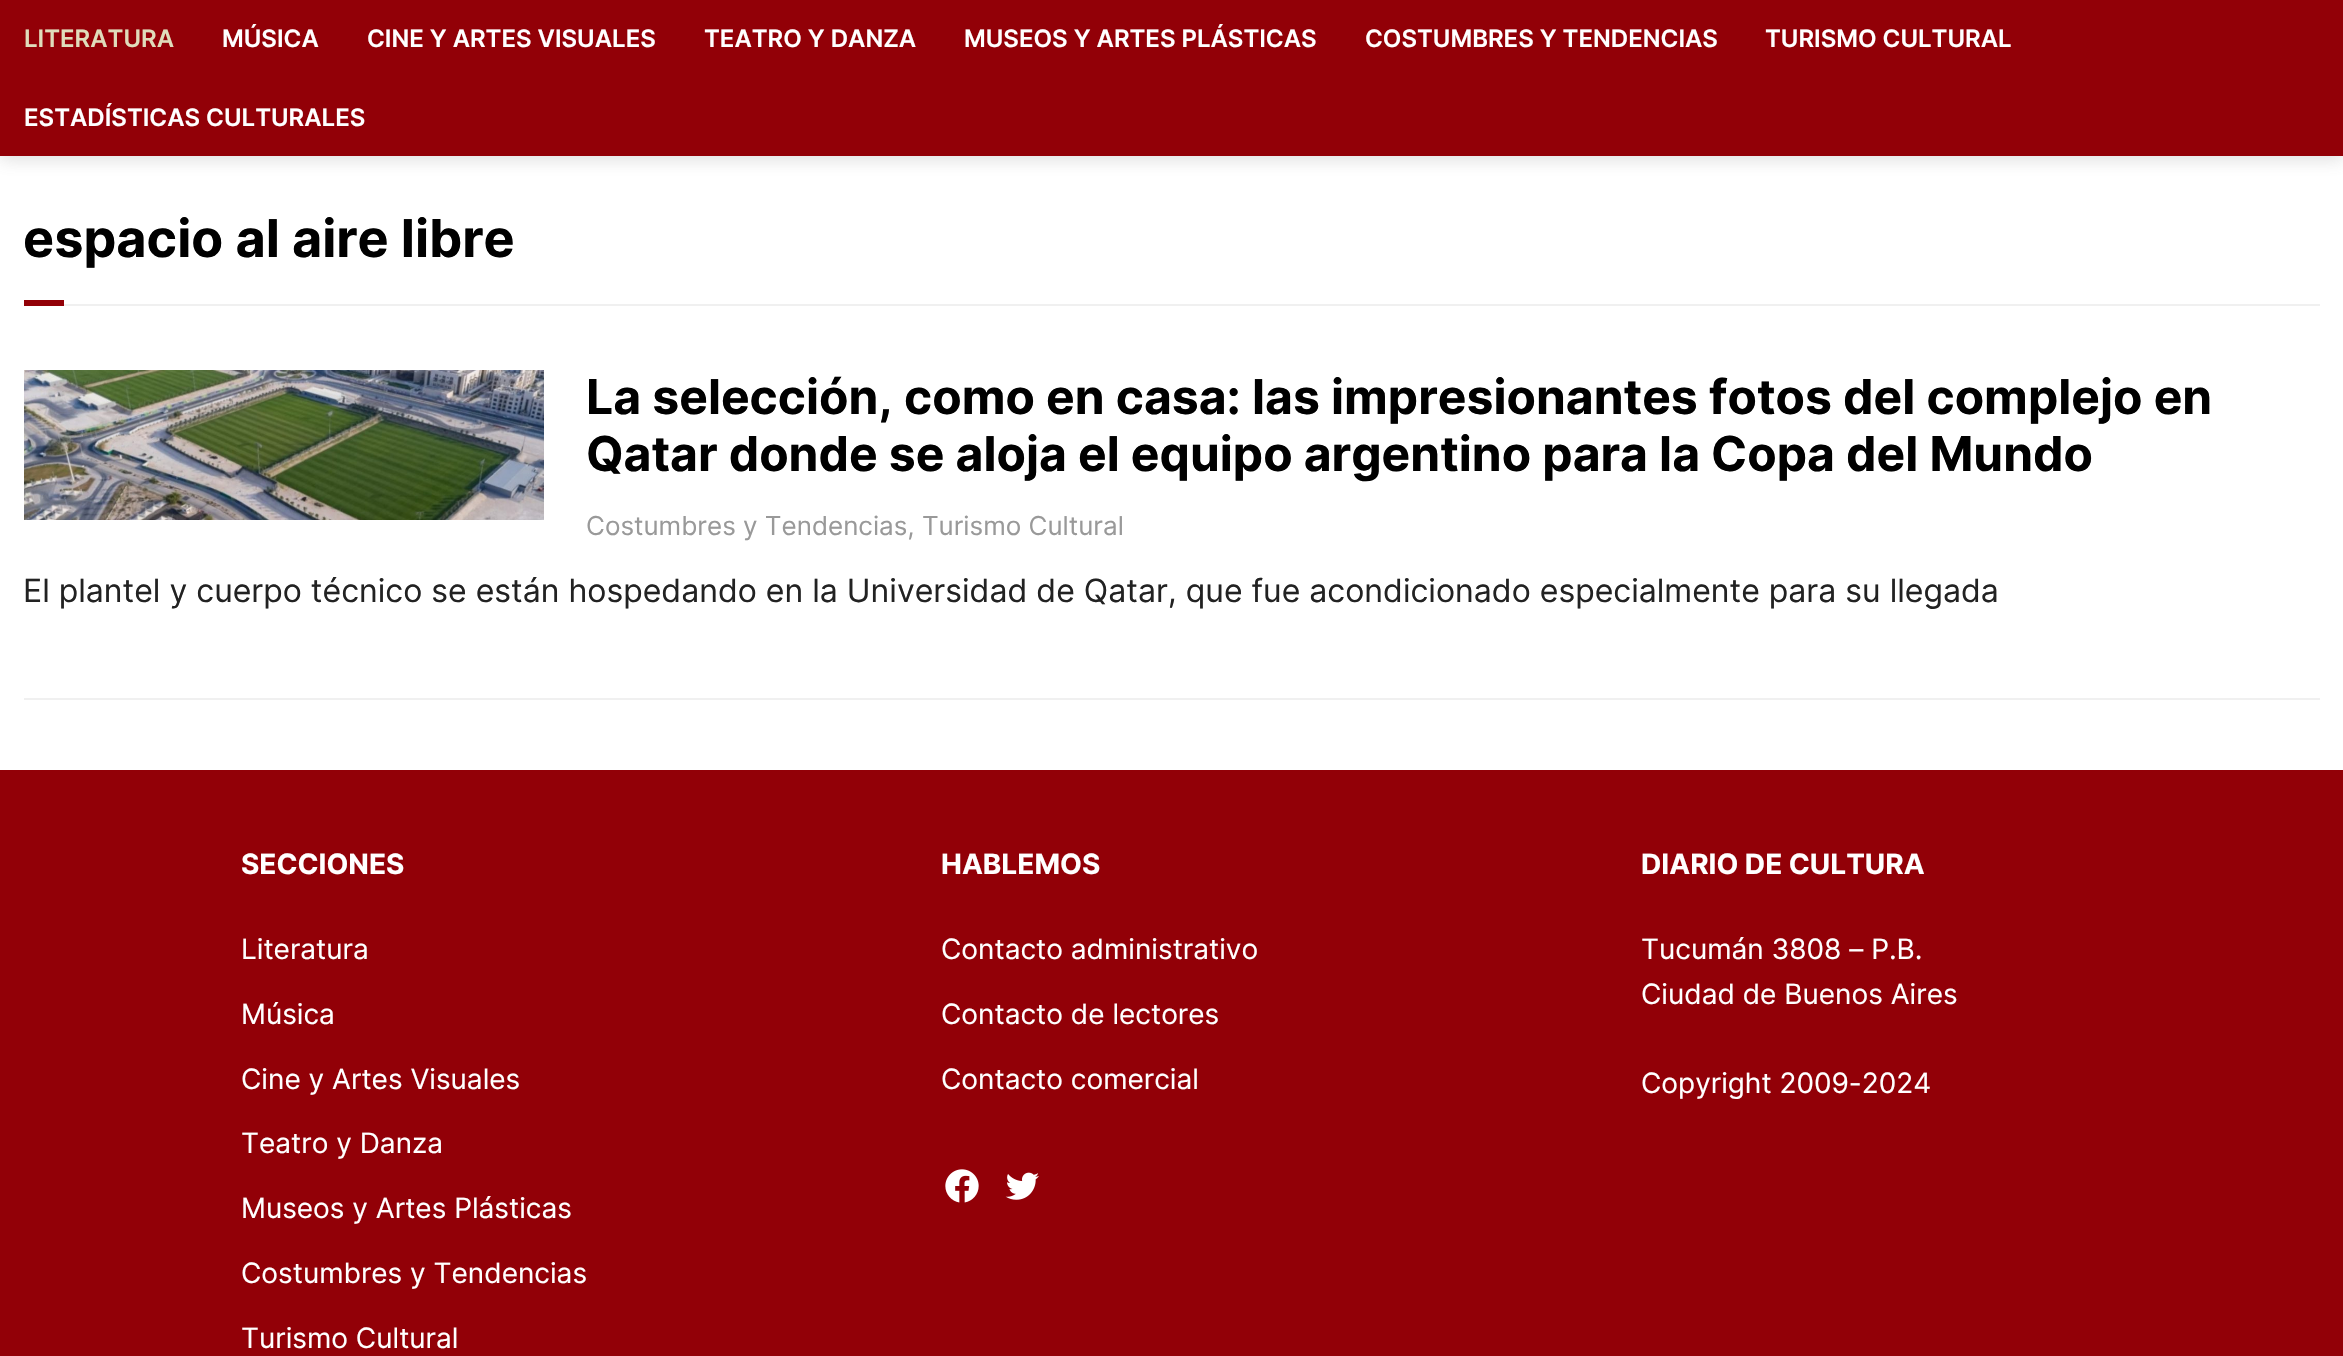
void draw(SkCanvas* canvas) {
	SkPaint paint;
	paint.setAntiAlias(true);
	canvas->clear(0xffffffff);
	paint.setColor(0x33636363);
	paint.setMaskFilter(SkMaskFilter::MakeBlur(kNormal_SkBlurStyle, 8));
	canvas->drawRect(SkRect::MakeXYWH(0, -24, 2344, 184), paint);
	paint.setMaskFilter(nullptr);
	paint.setColor(0xff920007);
	canvas->drawRect(SkRect::MakeXYWH(0, 0, 2343, 156), paint);
	SkFont f1(fontMgr->matchFamilyStyle("Inter", SkFontStyle(600, SkFontStyle::kNormal_Width, SkFontStyle::kUpright_Slant)), 24);
	f1.setSubpixel(true);
	paint.setColor(0xffe0dcbb);
	canvas->drawString("LITERATURA", 24, 47, f1, paint);
	paint.setColor(0xffffffff);
	canvas->drawString("MÚSICA", 222, 47, f1, paint);
	canvas->drawString("CINE Y ARTES VISUALES", 367, 47, f1, paint);
	canvas->drawString("TEATRO Y DANZA", 704, 47, f1, paint);
	canvas->drawString("MUSEOS Y ARTES PLÁSTICAS", 964, 47, f1, paint);
	canvas->drawString("COSTUMBRES Y TENDENCIAS", 1365, 47, f1, paint);
	canvas->drawString("TURISMO CULTURAL", 1765, 47, f1, paint);
	canvas->drawString("ESTADÍSTICAS CULTURALES", 24, 126, f1, paint);
	paint.setColor(0xfff0f0f0);
	canvas->drawRect(SkRect::MakeXYWH(64, 304, 2256, 2), paint);
	SkFont f2(fontMgr->matchFamilyStyle("Inter", SkFontStyle::Bold()), 52.1);
	f2.setSubpixel(true);
	paint.setColor(0xff000000);
	canvas->drawString("espacio al aire libre", 23, 257, f2, paint);
	paint.setColor(0xff920007);
	canvas->drawRect(SkRect::MakeXYWH(24, 300, 40, 6), paint);
	paint.setColor(0xfff0f0f0);
	canvas->drawRect(SkRect::MakeXYWH(24, 698, 2296, 2), paint);
	canvas->drawImageRect(SkImages::DeferredFromEncodedData(SkData::MakeFromFileName("img1.png")), SkRect::MakeXYWH(24, 370, 520, 150), SkSamplingOptions());
	SkFont f3(fontMgr->matchFamilyStyle("Inter", SkFontStyle::Bold()), 48);
	f3.setSubpixel(true);
	paint.setColor(0xff000000);
	canvas->drawString("La selección, como en casa: las impresionantes fotos del complejo en", 586, 414, f3, paint);
	canvas->drawString("Qatar donde se aloja el equipo argentino para la Copa del Mundo", 586, 471, f3, paint);
	SkFont f4(fontMgr->matchFamilyStyle("Inter", SkFontStyle::Normal()), 26);
	f4.setSubpixel(true);
	paint.setColor(0xff999999);
	canvas->drawString("Costumbres y Tendencias, Turismo Cultural", 586, 535, f4, paint);
	SkFont f5(fontMgr->matchFamilyStyle("Inter", SkFontStyle::Normal()), 32);
	f5.setSubpixel(true);
	paint.setColor(0xff222222);
	canvas->drawString("El plantel y cuerpo técnico se están hospedando en la Universidad de Qatar, que fue acondicionado especialmente para su llegada", 23, 602, f5, paint);
	paint.setColor(0xff920007);
	canvas->drawRect(SkRect::MakeXYWH(0, 770, 2343, 586), paint);
	SkFont f6(fontMgr->matchFamilyStyle("Inter", SkFontStyle::Bold()), 28);
	f6.setSubpixel(true);
	paint.setColor(0xffffffff);
	canvas->drawString("SECCIONES", 241, 874, f6, paint);
	SkFont f7(fontMgr->matchFamilyStyle("Inter", SkFontStyle::Normal()), 28);
	f7.setSubpixel(true);
	canvas->drawString("Literatura", 241, 959, f7, paint);
	canvas->drawString("Música", 241, 1024, f7, paint);
	canvas->drawString("Cine y Artes Visuales", 241, 1089, f7, paint);
	canvas->drawString("Teatro y Danza", 241, 1153, f7, paint);
	canvas->drawString("Museos y Artes Plásticas", 241, 1218, f7, paint);
	canvas->drawString("Costumbres y Tendencias", 241, 1283, f7, paint);
	canvas->drawString("Turismo Cultural", 241, 1348, f7, paint);
	canvas->drawString("HABLEMOS", 941, 874, f6, paint);
	canvas->drawString("Contacto administrativo", 941, 959, f7, paint);
	canvas->drawString("Contacto de lectores", 941, 1024, f7, paint);
	canvas->drawString("Contacto comercial", 941, 1089, f7, paint);
	canvas->drawImageRect(SkImages::DeferredFromEncodedData(SkData::MakeFromFileName("img2.png")), SkRect::MakeXYWH(945, 1169, 34, 34), SkSamplingOptions());
	canvas->drawImageRect(SkImages::DeferredFromEncodedData(SkData::MakeFromFileName("img3.png")), SkRect::MakeXYWH(1005, 1172, 34, 28), SkSamplingOptions());
	canvas->drawString("DIARIO DE CULTURA", 1641, 874, f6, paint);
	canvas->drawString("Tucumán 3808 – P.B.", 1641, 959, f7, paint);
	canvas->drawString("Ciudad de Buenos Aires", 1641, 1004, f7, paint);
	canvas->drawString("Copyright 2009-2024", 1641, 1093, f7, paint);
}
